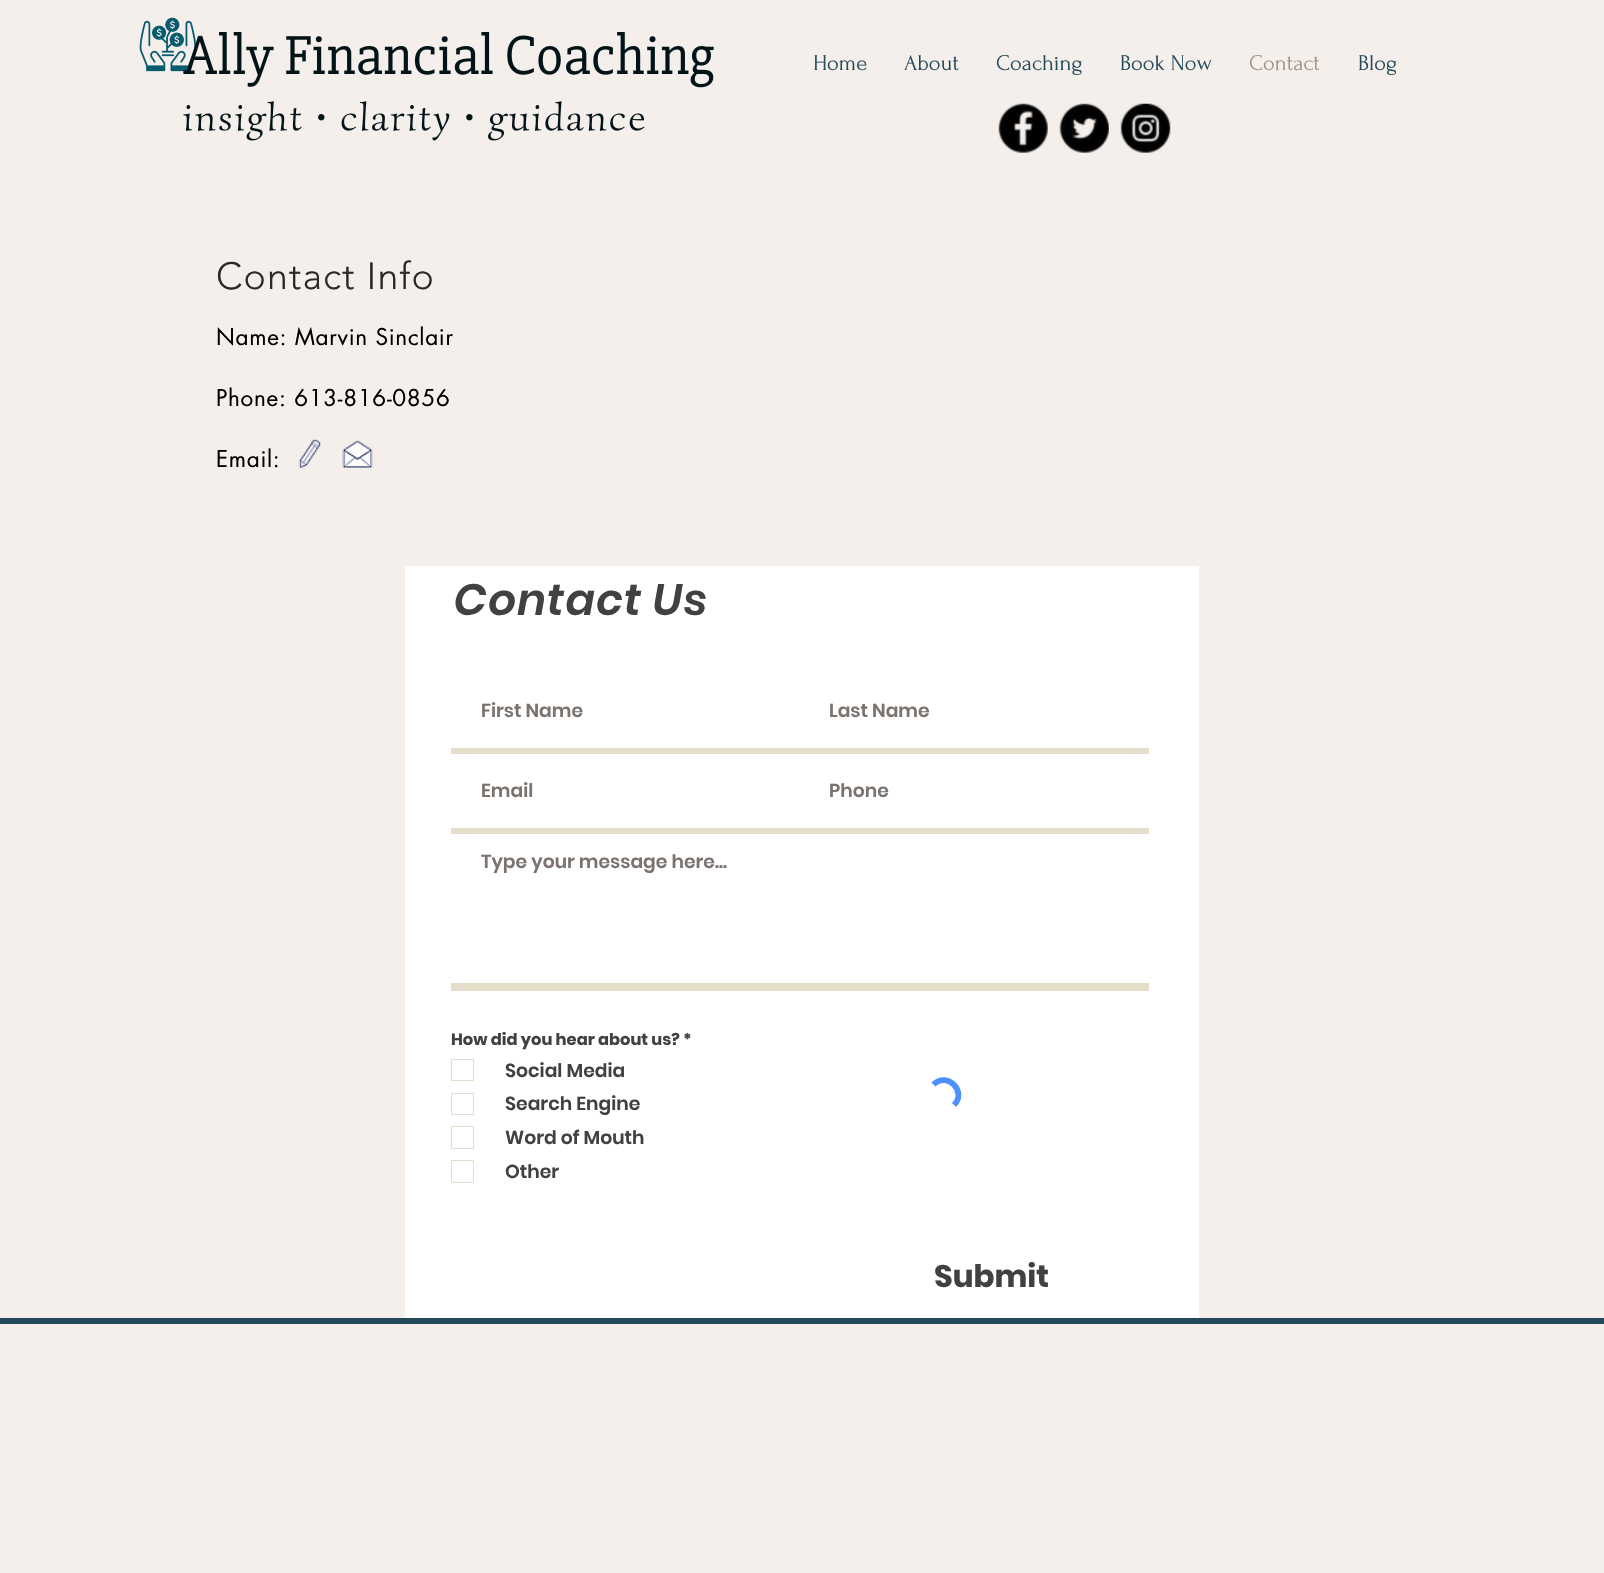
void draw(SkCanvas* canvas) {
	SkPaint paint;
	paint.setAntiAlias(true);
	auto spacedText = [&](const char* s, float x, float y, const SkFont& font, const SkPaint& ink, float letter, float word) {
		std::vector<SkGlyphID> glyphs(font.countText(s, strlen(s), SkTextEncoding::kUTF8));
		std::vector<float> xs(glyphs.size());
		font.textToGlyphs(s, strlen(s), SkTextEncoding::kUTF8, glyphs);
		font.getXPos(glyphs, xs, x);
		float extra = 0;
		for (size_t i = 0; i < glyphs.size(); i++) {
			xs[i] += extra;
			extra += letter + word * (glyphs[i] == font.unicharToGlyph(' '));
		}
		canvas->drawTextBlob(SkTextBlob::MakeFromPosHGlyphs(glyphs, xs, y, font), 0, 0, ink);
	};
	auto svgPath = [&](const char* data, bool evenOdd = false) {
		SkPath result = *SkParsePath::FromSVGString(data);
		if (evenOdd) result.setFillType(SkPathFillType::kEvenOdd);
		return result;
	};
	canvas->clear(0xfff4efeb);
	canvas->drawImageRect(SkImages::DeferredFromEncodedData(SkData::MakeFromFileName("img1.png")), SkRect::MakeXYWH(139, 17, 575, 124), SkSamplingOptions());
	SkFont f1(fontMgr->matchFamilyStyle("Forum", SkFontStyle::Normal()), 22.5);
	f1.setSubpixel(true);
	paint.setColor(0xff22495a);
	canvas->drawString("Home", 813, 70, f1, paint);
	canvas->drawString("About", 904, 70, f1, paint);
	canvas->drawString("Coaching", 996, 70, f1, paint);
	canvas->drawString("Book Now", 1120, 70, f1, paint);
	paint.setColor(0xff9e928b);
	canvas->drawString("Contact", 1249, 70, f1, paint);
	paint.setColor(0xff22495a);
	canvas->drawString("Blog", 1358, 70, f1, paint);
	canvas->drawImageRect(SkImages::DeferredFromEncodedData(SkData::MakeFromFileName("img2.png")), SkRect::MakeXYWH(998, 103, 50, 50), SkSamplingOptions());
	canvas->drawImageRect(SkImages::DeferredFromEncodedData(SkData::MakeFromFileName("img3.png")), SkRect::MakeXYWH(1059, 103, 50, 50), SkSamplingOptions());
	canvas->drawImageRect(SkImages::DeferredFromEncodedData(SkData::MakeFromFileName("img4.png")), SkRect::MakeXYWH(1120, 103, 51, 50), SkSamplingOptions());
	SkFont f2(fontMgr->matchFamilyStyle("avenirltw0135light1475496", SkFontStyle(300, SkFontStyle::kNormal_Width, SkFontStyle::kUpright_Slant)), 37.5);
	f2.setSubpixel(true);
	paint.setColor(0xff292929);
	spacedText("Contact Info", 216, 289, f2, paint, 1.1, 0);
	SkFont f3(fontMgr->matchFamilyStyle("futura", SkFontStyle::Normal()), 22.5);
	f3.setSubpixel(true);
	paint.setColor(0xff000000);
	spacedText("Name: Marvin Sinclair", 216, 345, f3, paint, 0.7, 0);
	spacedText("Phone: 613-816-0856", 216, 406, f3, paint, 0.7, 0);
	spacedText("Email:", 216, 467, f3, paint, 0.7, 0);
	canvas->drawImageRect(SkImages::DeferredFromEncodedData(SkData::MakeFromFileName("img5.png")), SkRect::MakeXYWH(298, 438, 24, 31), SkSamplingOptions());
	canvas->drawImageRect(SkImages::DeferredFromEncodedData(SkData::MakeFromFileName("img6.png")), SkRect::MakeXYWH(342, 440, 31, 28), SkSamplingOptions());
	paint.setColor(0xffffffff);
	canvas->drawRect(SkRect::MakeXYWH(405, 566, 794, 752), paint);
	SkFont f4(fontMgr->matchFamilyStyle("Poppins", SkFontStyle(600, SkFontStyle::kNormal_Width, SkFontStyle::kItalic_Slant)), 43.75);
	f4.setSubpixel(true);
	paint.setColor(0xff414141);
	spacedText("Contact Us", 454, 615, f4, paint, 0.9, 0);
	paint.setColor(0xffe6deca);
	canvas->drawRect(SkRect::MakeXYWH(451, 748, 698, 6), paint);
	SkFont f5(fontMgr->matchFamilyStyle("Poppins", SkFontStyle(600, SkFontStyle::kNormal_Width, SkFontStyle::kUpright_Slant)), 18.75);
	f5.setSubpixel(true);
	paint.setColor(0xff7a736f);
	canvas->drawString("First Name", 481, 717, f5, paint);
	canvas->drawString("Last Name", 829, 717, f5, paint);
	paint.setColor(0xffe6deca);
	canvas->drawRect(SkRect::MakeXYWH(451, 828, 698, 6), paint);
	paint.setColor(0xff7a736f);
	canvas->drawString("Email", 481, 797, f5, paint);
	canvas->drawString("Phone", 829, 797, f5, paint);
	paint.setColor(0xffe6deca);
	canvas->drawRect(SkRect::MakeXYWH(451, 983, 698, 8), paint);
	paint.setColor(0xff7a736f);
	canvas->drawString("Type your message here...", 481, 868, f5, paint);
	SkFont f6(fontMgr->matchFamilyStyle("Poppins", SkFontStyle::Bold()), 16.25);
	f6.setSubpixel(true);
	paint.setColor(0xff414141);
	canvas->drawString("How did you hear about us? *", 451, 1045, f6, paint);
	paint.setStroke(true);
	paint.setStrokeWidth(1);
	paint.setColor(0xffe6deca);
	canvas->drawRect(SkRect::MakeXYWH(451.5, 1059.5, 22, 21), paint);
	paint.setStroke(false);
	paint.setColor(0xff414141);
	canvas->drawString("Social Media", 505, 1077, f5, paint);
	paint.setStroke(true);
	paint.setColor(0xffe6deca);
	canvas->drawRect(SkRect::MakeXYWH(451.5, 1093.5, 22, 21), paint);
	paint.setStroke(false);
	paint.setColor(0xff414141);
	canvas->drawString("Search Engine", 505, 1110, f5, paint);
	paint.setStroke(true);
	paint.setColor(0xffe6deca);
	canvas->drawRect(SkRect::MakeXYWH(451.5, 1126.5, 22, 22), paint);
	paint.setStroke(false);
	paint.setColor(0xff414141);
	canvas->drawString("Word of Mouth", 505, 1144, f5, paint);
	paint.setStroke(true);
	paint.setColor(0xffe6deca);
	canvas->drawRect(SkRect::MakeXYWH(451.5, 1160.5, 22, 22), paint);
	paint.setStroke(false);
	paint.setColor(0xff414141);
	canvas->drawString("Other", 505, 1178, f5, paint);
	paint.setStroke(true);
	paint.setStrokeWidth(5.8);
	paint.setColor(0xff4d90fe);
	canvas->drawPath(svgPath("M933.5 1084.5C947 1071 967.5 1091.5 954 1105"), paint);
	SkFont f7(fontMgr->matchFamilyStyle("Poppins", SkFontStyle::Bold()), 31);
	f7.setSubpixel(true);
	paint.setStroke(false);
	paint.setColor(0xff414141);
	canvas->drawString("Submit", 934, 1287, f7, paint);
	paint.setColor(0xff22495a);
	canvas->drawRect(SkRect::MakeXYWH(0, 1318, 1604, 6), paint);
}
